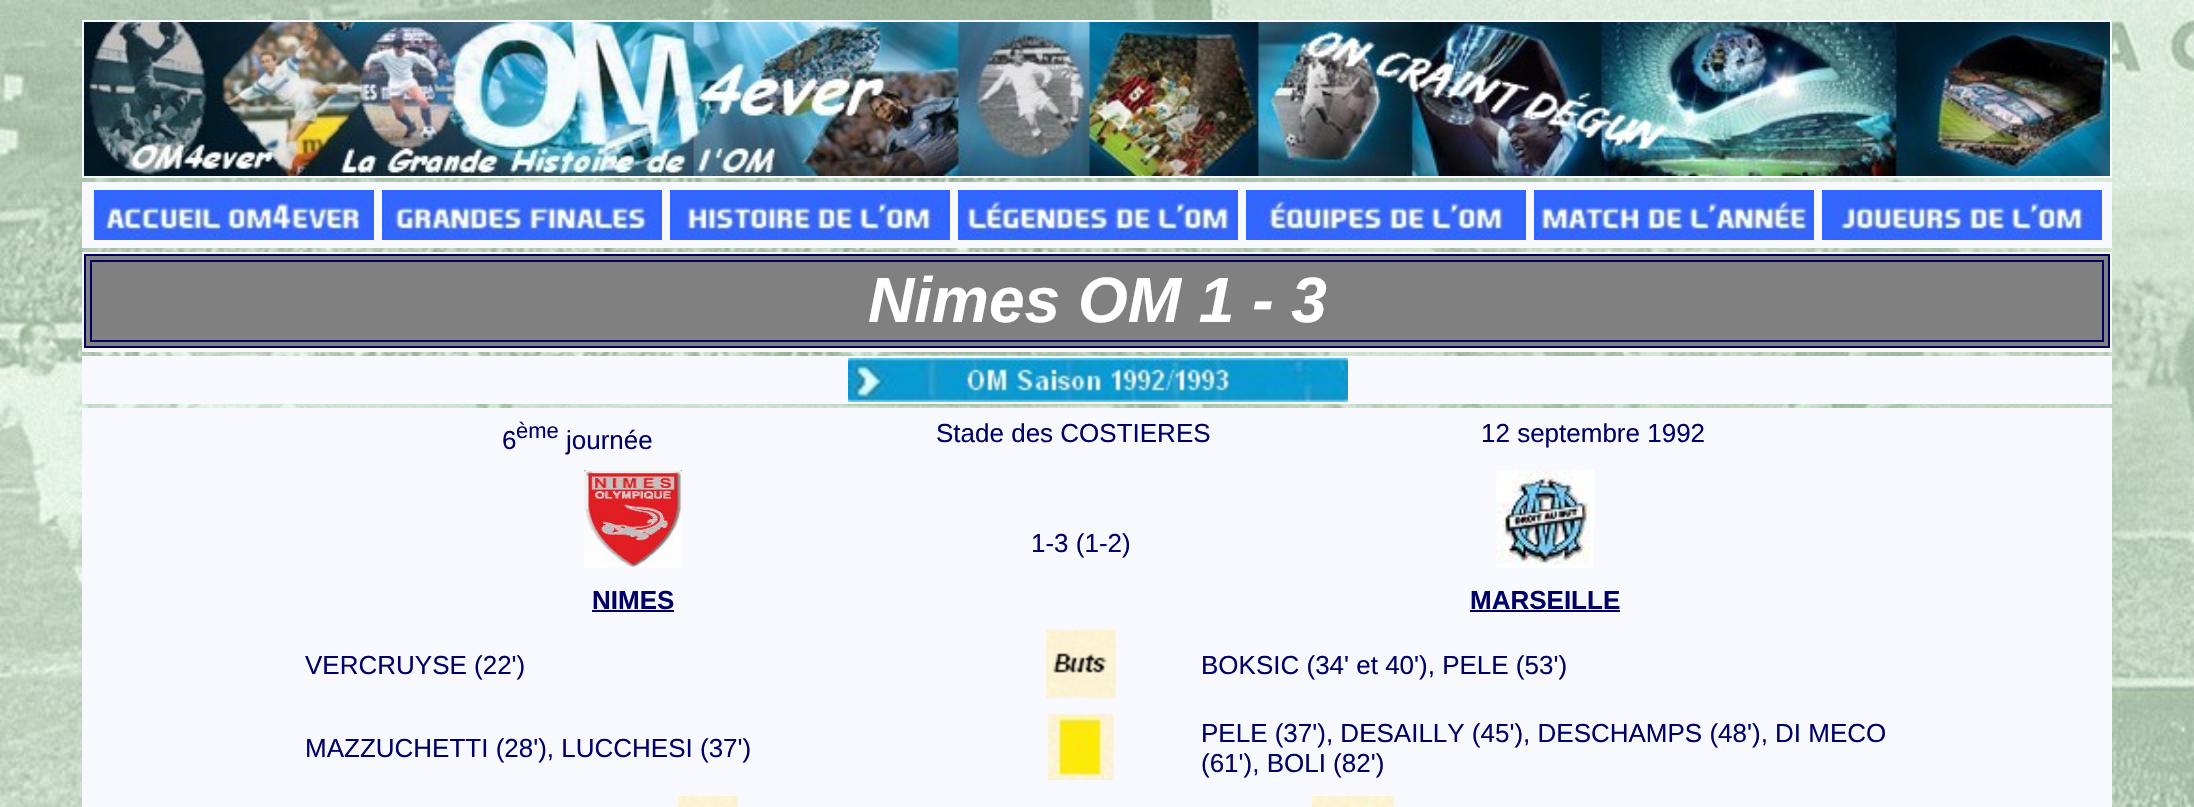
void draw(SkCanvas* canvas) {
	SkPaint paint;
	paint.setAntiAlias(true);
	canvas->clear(0xffffffff);
	canvas->drawImageRect(SkImages::DeferredFromEncodedData(SkData::MakeFromFileName("img1.png")), SkRect::MakeXYWH(0, 0, 2194, 807), SkSamplingOptions());
	paint.setColor(0xfff8f8ff);
	canvas->drawRect(SkRect::MakeXYWH(82, 20, 2030, 158), paint);
	canvas->drawImageRect(SkImages::DeferredFromEncodedData(SkData::MakeFromFileName("img2.png")), SkRect::MakeXYWH(84, 22, 2026, 154), SkSamplingOptions());
	canvas->drawRect(SkRect::MakeXYWH(82, 182, 2030, 66), paint);
	canvas->drawImageRect(SkImages::DeferredFromEncodedData(SkData::MakeFromFileName("img3.png")), SkRect::MakeXYWH(94, 190, 280, 50), SkSamplingOptions());
	canvas->drawImageRect(SkImages::DeferredFromEncodedData(SkData::MakeFromFileName("img4.png")), SkRect::MakeXYWH(382, 190, 280, 50), SkSamplingOptions());
	canvas->drawImageRect(SkImages::DeferredFromEncodedData(SkData::MakeFromFileName("img5.png")), SkRect::MakeXYWH(670, 190, 280, 50), SkSamplingOptions());
	canvas->drawImageRect(SkImages::DeferredFromEncodedData(SkData::MakeFromFileName("img6.png")), SkRect::MakeXYWH(958, 190, 280, 50), SkSamplingOptions());
	canvas->drawImageRect(SkImages::DeferredFromEncodedData(SkData::MakeFromFileName("img7.png")), SkRect::MakeXYWH(1246, 190, 280, 50), SkSamplingOptions());
	canvas->drawImageRect(SkImages::DeferredFromEncodedData(SkData::MakeFromFileName("img8.png")), SkRect::MakeXYWH(1534, 190, 280, 50), SkSamplingOptions());
	canvas->drawImageRect(SkImages::DeferredFromEncodedData(SkData::MakeFromFileName("img9.png")), SkRect::MakeXYWH(1822, 190, 280, 50), SkSamplingOptions());
	canvas->drawRect(SkRect::MakeXYWH(82, 252, 2030, 100), paint);
	paint.setColor(0xff808080);
	canvas->drawRect(SkRect::MakeXYWH(85, 255, 2024, 92), paint);
	paint.setStroke(true);
	paint.setStrokeWidth(2);
	paint.setColor(0xff000066);
	canvas->drawRect(SkRect::MakeXYWH(85, 255, 2024, 92), paint);
	canvas->drawRect(SkRect::MakeXYWH(91, 261, 2012, 80), paint);
	SkFont f1(fontMgr->matchFamilyStyle("Liberation Sans", SkFontStyle::BoldItalic()), 64);
	f1.setSubpixel(true);
	paint.setStroke(false);
	paint.setColor(0xffffffff);
	canvas->drawString("Nimes OM 1 - 3", 868, 322, f1, paint);
	paint.setColor(0xfff8f8ff);
	canvas->drawRect(SkRect::MakeXYWH(82, 356, 2030, 48), paint);
	canvas->drawImageRect(SkImages::DeferredFromEncodedData(SkData::MakeFromFileName("img10.png")), SkRect::MakeXYWH(848, 358, 500, 44), SkSamplingOptions());
	canvas->drawRect(SkRect::MakeXYWH(82, 408, 2030, 399), paint);
	SkFont f2(fontMgr->matchFamilyStyle("Liberation Sans", SkFontStyle::Normal()), 26);
	f2.setSubpixel(true);
	paint.setColor(0xff000066);
	canvas->drawString("6", 502, 449, f2, paint);
	SkFont f3(fontMgr->matchFamilyStyle("Liberation Sans", SkFontStyle::Normal()), 22);
	f3.setSubpixel(true);
	canvas->drawString("ème", 516, 438, f3, paint);
	canvas->drawString("journée", 566, 449, f2, paint);
	canvas->drawString("Stade des COSTIERES", 936, 442, f2, paint);
	canvas->drawString("12 septembre 1992", 1481, 442, f2, paint);
	canvas->drawImageRect(SkImages::DeferredFromEncodedData(SkData::MakeFromFileName("img11.png")), SkRect::MakeXYWH(584, 470, 98, 98), SkSamplingOptions());
	canvas->drawString("1-3 (1-2)", 1031, 552, f2, paint);
	canvas->drawImageRect(SkImages::DeferredFromEncodedData(SkData::MakeFromFileName("img12.png")), SkRect::MakeXYWH(1496, 470, 98, 98), SkSamplingOptions());
	SkFont f4(fontMgr->matchFamilyStyle("Liberation Sans", SkFontStyle::Bold()), 26);
	f4.setSubpixel(true);
	canvas->drawString("NIMES", 592, 609, f4, paint);
	canvas->drawRect(SkRect::MakeXYWH(592, 610, 82, 2), paint);
	canvas->drawString("MARSEILLE", 1470, 609, f4, paint);
	canvas->drawRect(SkRect::MakeXYWH(1470, 610, 150, 2), paint);
	canvas->drawString("VERCRUYSE (22')", 305, 674, f2, paint);
	canvas->drawImageRect(SkImages::DeferredFromEncodedData(SkData::MakeFromFileName("img13.png")), SkRect::MakeXYWH(1046, 630, 70, 68), SkSamplingOptions());
	canvas->drawString("BOKSIC (34' et 40'), PELE (53')", 1201, 674, f2, paint);
	canvas->drawString("MAZZUCHETTI (28'), LUCCHESI (37')", 305, 757, f2, paint);
	canvas->drawImageRect(SkImages::DeferredFromEncodedData(SkData::MakeFromFileName("img14.png")), SkRect::MakeXYWH(1048, 714, 66, 66), SkSamplingOptions());
	canvas->drawString("PELE (37'), DESAILLY (45'), DESCHAMPS (48'), DI MECO", 1201, 742, f2, paint);
	canvas->drawString("(61'), BOLI (82')", 1201, 772, f2, paint);
	canvas->drawImageRect(SkImages::DeferredFromEncodedData(SkData::MakeFromFileName("img15.png")), SkRect::MakeXYWH(678, 796, 60, 11), SkSamplingOptions());
	canvas->drawImageRect(SkImages::DeferredFromEncodedData(SkData::MakeFromFileName("img16.png")), SkRect::MakeXYWH(1312, 796, 82, 11), SkSamplingOptions());
}
